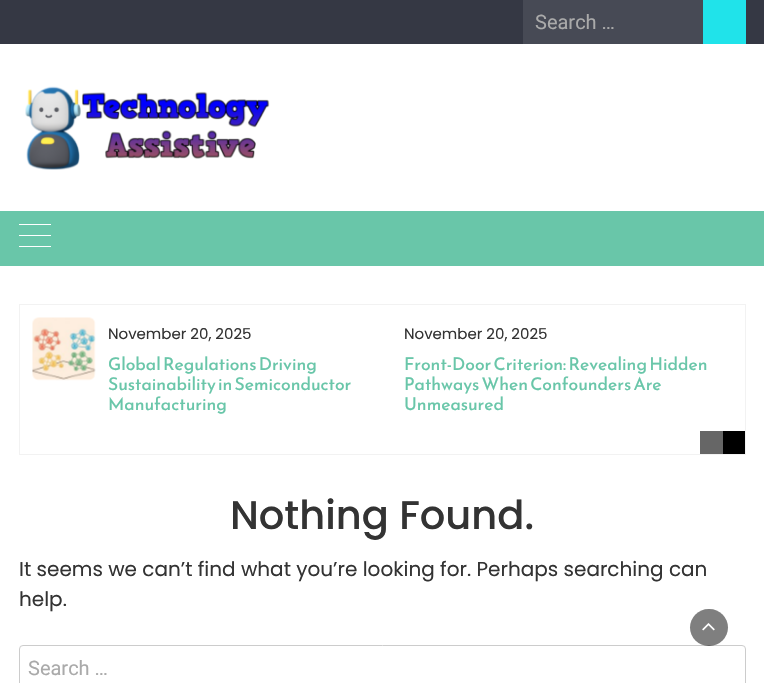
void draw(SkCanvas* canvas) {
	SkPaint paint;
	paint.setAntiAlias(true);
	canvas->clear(0xffffffff);
	paint.setColor(0xff353844);
	canvas->drawRect(SkRect::MakeXYWH(0, 0, 764, 44), paint);
	paint.setColor(0xff474a55);
	canvas->drawRect(SkRect::MakeXYWH(523, 0, 180, 44), paint);
	SkFont f1(fontMgr->matchFamilyStyle("Roboto", SkFontStyle::Normal()), 20);
	f1.setSubpixel(true);
	paint.setColor(0xffaaaaaa);
	canvas->drawString("Search …", 535, 29, f1, paint);
	paint.setColor(0xff20e3ea);
	canvas->drawRect(SkRect::MakeXYWH(703, 0, 43, 44), paint);
	canvas->drawImageRect(SkImages::DeferredFromEncodedData(SkData::MakeFromFileName("img1.png")), SkRect::MakeXYWH(25, 86, 245, 84), SkSamplingOptions());
	paint.setColor(0xff69c6a9);
	canvas->drawRect(SkRect::MakeXYWH(0, 211, 764, 55), paint);
	paint.setColor(0xffffffff);
	canvas->drawRect(SkRect::MakeXYWH(19, 224, 32, 1), paint);
	canvas->drawRect(SkRect::MakeXYWH(19, 235, 32, 1), paint);
	canvas->drawRect(SkRect::MakeXYWH(19, 246, 32, 1), paint);
	paint.setStroke(true);
	paint.setStrokeWidth(1);
	paint.setColor(0xfff2f2f2);
	canvas->drawRect(SkRect::MakeXYWH(19.5, 304.5, 726, 150), paint);
	canvas->drawImageRect(SkImages::DeferredFromEncodedData(SkData::MakeFromFileName("img2.png")), SkRect::MakeXYWH(32, 317, 64, 64), SkSamplingOptions());
	SkFont f2(fontMgr->matchFamilyStyle("Poppins", SkFontStyle::Normal()), 15);
	f2.setSubpixel(true);
	paint.setStroke(false);
	paint.setColor(0xff333333);
	canvas->drawString("November 20, 2025", 108, 339, f2, paint);
	SkFont f3(fontMgr->matchFamilyStyle("Reem Kufi", SkFontStyle::Normal()), 17.5);
	f3.setSubpixel(true);
	paint.setColor(0xff69c6a9);
	canvas->drawString("Global Regulations Driving", 108, 370, f3, paint);
	canvas->drawString("Sustainability in Semiconductor", 108, 390, f3, paint);
	canvas->drawString("Manufacturing", 108, 410, f3, paint);
	paint.setColor(0xff333333);
	canvas->drawString("November 20, 2025", 404, 339, f2, paint);
	paint.setColor(0xff69c6a9);
	canvas->drawString("Front-Door Criterion: Revealing Hidden", 404, 370, f3, paint);
	canvas->drawString("Pathways When Confounders Are", 404, 390, f3, paint);
	canvas->drawString("Unmeasured", 404, 410, f3, paint);
	paint.setColor(0xff666666);
	canvas->drawRect(SkRect::MakeXYWH(700, 431, 23, 23), paint);
	paint.setColor(0xff000000);
	canvas->drawRect(SkRect::MakeXYWH(723, 431, 22, 23), paint);
	SkFont f4(fontMgr->matchFamilyStyle("Poppins", SkFontStyle(500, SkFontStyle::kNormal_Width, SkFontStyle::kUpright_Slant)), 40);
	f4.setSubpixel(true);
	paint.setColor(0xff333333);
	canvas->drawString("Nothing Found.", 230, 529, f4, paint);
	SkFont f5(fontMgr->matchFamilyStyle("Poppins", SkFontStyle::Normal()), 20);
	f5.setSubpixel(true);
	canvas->drawString("It seems we can’t find what you’re looking for. Perhaps searching can", 19, 576, f5, paint);
	canvas->drawString("help.", 19, 606, f5, paint);
	paint.setStroke(true);
	paint.setColor(0xffcccccc);
	canvas->drawRoundRect(SkRect::MakeXYWH(19.5, 645.5, 726, 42), 3.5, 3.5, paint);
	paint.setStroke(false);
	paint.setColor(0xffaaaaaa);
	canvas->drawString("Search …", 28, 675, f1, paint);
	paint.setColor(0x80000000);
	canvas->drawRoundRect(SkRect::MakeXYWH(690, 609, 38, 37), 18.5, 18.5, paint);
	canvas->drawImageRect(SkImages::DeferredFromEncodedData(SkData::MakeFromFileName("img3.png")), SkRect::MakeXYWH(702, 623, 13, 8), SkSamplingOptions());
}
